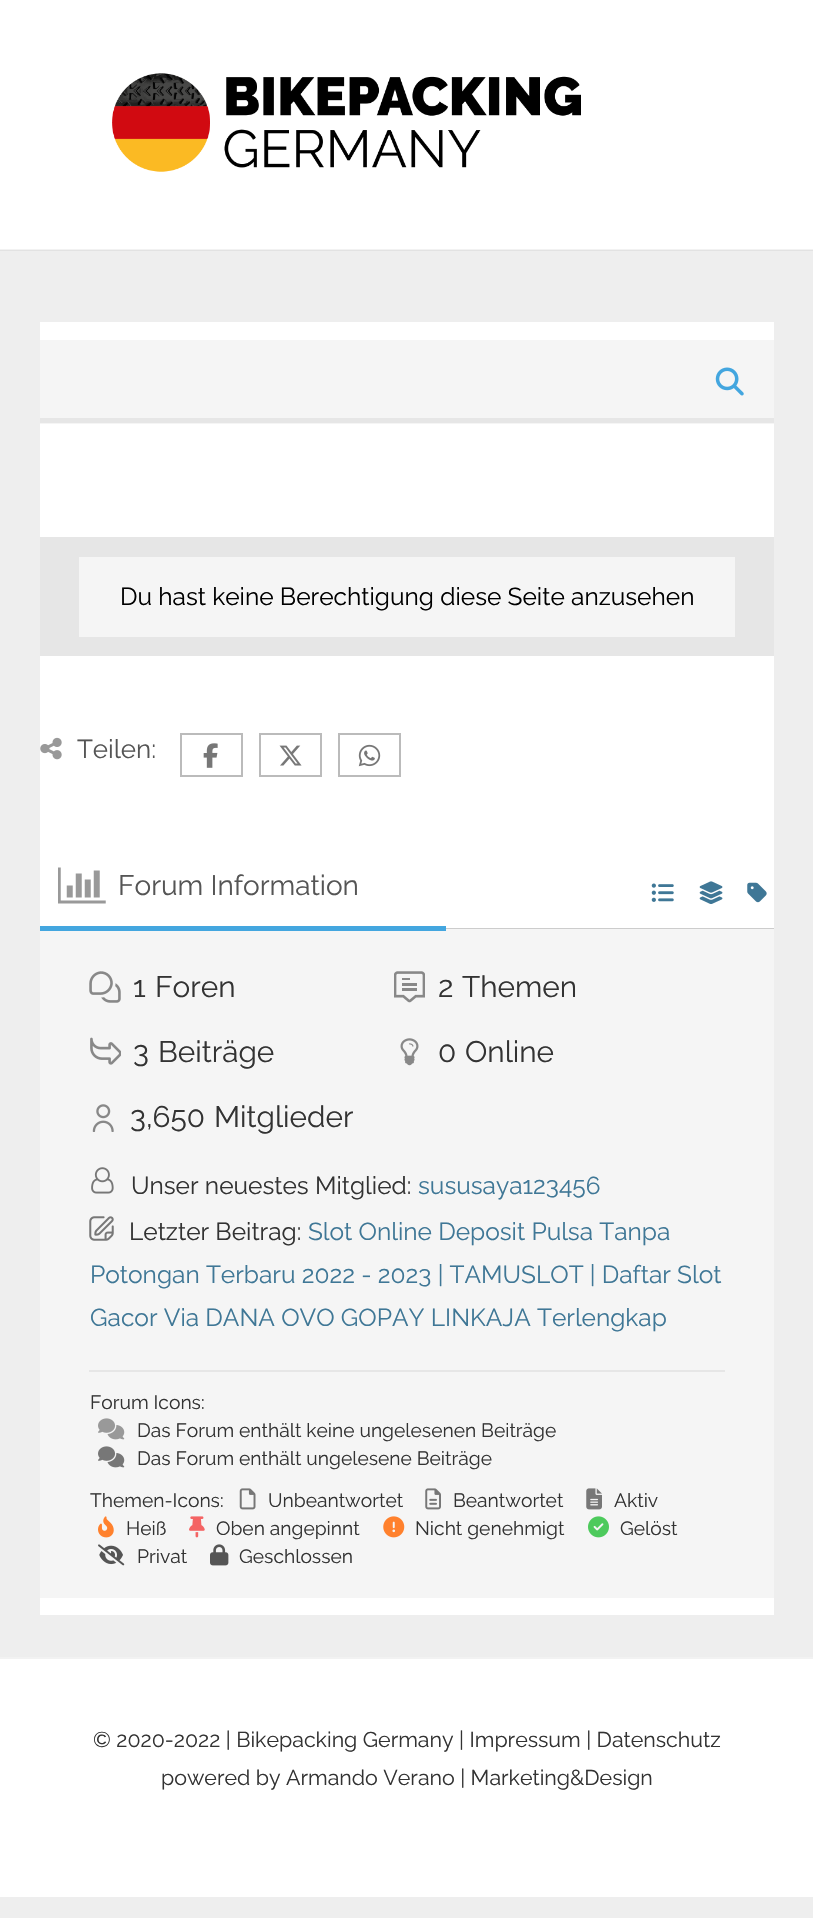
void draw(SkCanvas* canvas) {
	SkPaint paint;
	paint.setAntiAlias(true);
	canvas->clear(0xffeeeeee);
	paint.setColor(0xffe2e2e2);
	canvas->drawRect(SkRect::MakeXYWH(0, 250, 813, 1), paint);
	paint.setColor(0xffffffff);
	canvas->drawRect(SkRect::MakeXYWH(0, 0, 813, 249), paint);
	paint.setColor(0xfff2f2f2);
	canvas->drawRect(SkRect::MakeXYWH(0, 249, 813, 1), paint);
	canvas->drawImageRect(SkImages::DeferredFromEncodedData(SkData::MakeFromFileName("img1.png")), SkRect::MakeXYWH(112, 73, 469, 99), SkSamplingOptions());
	paint.setColor(0xffffffff);
	canvas->drawRect(SkRect::MakeXYWH(40, 322, 734, 1293), paint);
	paint.setColor(0xfff5f5f5);
	canvas->drawRect(SkRect::MakeXYWH(40, 340, 734, 84), paint);
	paint.setColor(0xffe6e6e6);
	canvas->drawRect(SkRect::MakeXYWH(40, 418, 734, 5), paint);
	canvas->drawImageRect(SkImages::DeferredFromEncodedData(SkData::MakeFromFileName("img2.png")), SkRect::MakeXYWH(715, 367, 29, 29), SkSamplingOptions());
	canvas->drawRect(SkRect::MakeXYWH(40, 537, 734, 119), paint);
	paint.setColor(0xfff5f5f5);
	canvas->drawRect(SkRect::MakeXYWH(79, 557, 656, 80), paint);
	SkFont f1(fontMgr->matchFamilyStyle("Raleway", SkFontStyle(100, SkFontStyle::kNormal_Width, SkFontStyle::kUpright_Slant)), 24.5);
	f1.setSubpixel(true);
	paint.setColor(0xff000000);
	canvas->drawString("Du hast keine Berechtigung diese Seite anzusehen", 120, 605, f1, paint);
	canvas->drawImageRect(SkImages::DeferredFromEncodedData(SkData::MakeFromFileName("img3.png")), SkRect::MakeXYWH(40, 737, 22, 23), SkSamplingOptions());
	SkFont f2(fontMgr->matchFamilyStyle("Raleway", SkFontStyle(100, SkFontStyle::kNormal_Width, SkFontStyle::kUpright_Slant)), 26);
	f2.setSubpixel(true);
	paint.setColor(0xff555555);
	canvas->drawString("Teilen:", 77, 758, f2, paint);
	paint.setStroke(true);
	paint.setStrokeWidth(2);
	paint.setColor(0xffbbbbbb);
	canvas->drawRect(SkRect::MakeXYWH(181, 734, 61, 42), paint);
	canvas->drawImageRect(SkImages::DeferredFromEncodedData(SkData::MakeFromFileName("img4.png")), SkRect::MakeXYWH(203, 743, 15, 25), SkSamplingOptions());
	canvas->drawRect(SkRect::MakeXYWH(260, 734, 61, 42), paint);
	canvas->drawImageRect(SkImages::DeferredFromEncodedData(SkData::MakeFromFileName("img5.png")), SkRect::MakeXYWH(279, 745, 23, 21), SkSamplingOptions());
	canvas->drawRect(SkRect::MakeXYWH(339, 734, 61, 42), paint);
	canvas->drawImageRect(SkImages::DeferredFromEncodedData(SkData::MakeFromFileName("img6.png")), SkRect::MakeXYWH(358, 744, 23, 23), SkSamplingOptions());
	paint.setStroke(false);
	paint.setColor(0xffcccccc);
	canvas->drawRect(SkRect::MakeXYWH(446, 928, 328, 1), paint);
	paint.setColor(0xfff5f5f5);
	canvas->drawRect(SkRect::MakeXYWH(40, 929, 734, 669), paint);
	paint.setColor(0xff43a6df);
	canvas->drawRect(SkRect::MakeXYWH(40, 926, 406, 5), paint);
	canvas->drawImageRect(SkImages::DeferredFromEncodedData(SkData::MakeFromFileName("img7.png")), SkRect::MakeXYWH(58, 867, 48, 37), SkSamplingOptions());
	SkFont f3(fontMgr->matchFamilyStyle("Raleway", SkFontStyle(100, SkFontStyle::kNormal_Width, SkFontStyle::kUpright_Slant)), 28);
	f3.setSubpixel(true);
	paint.setColor(0xff555555);
	canvas->drawString("Forum Information", 118, 895, f3, paint);
	canvas->drawImageRect(SkImages::DeferredFromEncodedData(SkData::MakeFromFileName("img8.png")), SkRect::MakeXYWH(651, 883, 23, 19), SkSamplingOptions());
	canvas->drawImageRect(SkImages::DeferredFromEncodedData(SkData::MakeFromFileName("img9.png")), SkRect::MakeXYWH(699, 881, 24, 23), SkSamplingOptions());
	canvas->drawImageRect(SkImages::DeferredFromEncodedData(SkData::MakeFromFileName("img10.png")), SkRect::MakeXYWH(747, 882, 20, 21), SkSamplingOptions());
	canvas->drawImageRect(SkImages::DeferredFromEncodedData(SkData::MakeFromFileName("img11.png")), SkRect::MakeXYWH(89, 971, 32, 32), SkSamplingOptions());
	SkFont f4(fontMgr->matchFamilyStyle("Raleway", SkFontStyle(100, SkFontStyle::kNormal_Width, SkFontStyle::kUpright_Slant)), 29.75);
	f4.setSubpixel(true);
	paint.setColor(0xff333333);
	canvas->drawString("1", 133, 997, f4, paint);
	canvas->drawString("Foren", 155, 997, f4, paint);
	canvas->drawImageRect(SkImages::DeferredFromEncodedData(SkData::MakeFromFileName("img12.png")), SkRect::MakeXYWH(394, 971, 31, 32), SkSamplingOptions());
	canvas->drawString("2", 438, 997, f4, paint);
	canvas->drawString("Themen", 462, 997, f4, paint);
	canvas->drawImageRect(SkImages::DeferredFromEncodedData(SkData::MakeFromFileName("img13.png")), SkRect::MakeXYWH(90, 1037, 31, 28), SkSamplingOptions());
	canvas->drawString("3", 133, 1062, f4, paint);
	canvas->drawString("Beiträge", 158, 1062, f4, paint);
	canvas->drawImageRect(SkImages::DeferredFromEncodedData(SkData::MakeFromFileName("img14.png")), SkRect::MakeXYWH(400, 1038, 19, 28), SkSamplingOptions());
	canvas->drawString("0", 438, 1062, f4, paint);
	canvas->drawString("Online", 465, 1062, f4, paint);
	canvas->drawImageRect(SkImages::DeferredFromEncodedData(SkData::MakeFromFileName("img15.png")), SkRect::MakeXYWH(92, 1104, 22, 28), SkSamplingOptions());
	canvas->drawString("3,650", 130, 1127, f4, paint);
	canvas->drawString("Mitglieder", 214, 1127, f4, paint);
	canvas->drawImageRect(SkImages::DeferredFromEncodedData(SkData::MakeFromFileName("img16.png")), SkRect::MakeXYWH(91, 1167, 23, 27), SkSamplingOptions());
	canvas->drawString("Unser neuestes Mitglied:", 131, 1194, f1, paint);
	paint.setColor(0xff3f7796);
	canvas->drawString("sususaya123456", 418, 1194, f1, paint);
	canvas->drawImageRect(SkImages::DeferredFromEncodedData(SkData::MakeFromFileName("img17.png")), SkRect::MakeXYWH(89, 1216, 25, 25), SkSamplingOptions());
	paint.setColor(0xff333333);
	canvas->drawString("Letzter Beitrag:", 129, 1240, f1, paint);
	paint.setColor(0xff3f7796);
	canvas->drawString("Slot Online Deposit Pulsa Tanpa", 308, 1240, f1, paint);
	canvas->drawString("Potongan Terbaru 2022 - 2023 | TAMUSLOT | Daftar Slot", 90, 1283, f1, paint);
	canvas->drawString("Gacor Via DANA OVO GOPAY LINKAJA Terlengkap", 90, 1326, f1, paint);
	paint.setColor(0xffe6e6e6);
	canvas->drawRect(SkRect::MakeXYWH(89, 1370, 636, 2), paint);
	SkFont f5(fontMgr->matchFamilyStyle("Raleway", SkFontStyle(100, SkFontStyle::kNormal_Width, SkFontStyle::kUpright_Slant)), 19.25);
	f5.setSubpixel(true);
	paint.setColor(0xff333333);
	canvas->drawString("Forum Icons:", 90, 1409, f5, paint);
	canvas->drawImageRect(SkImages::DeferredFromEncodedData(SkData::MakeFromFileName("img18.png")), SkRect::MakeXYWH(98, 1418, 27, 22), SkSamplingOptions());
	canvas->drawString("Das Forum enthält keine ungelesenen Beiträge", 137, 1437, f5, paint);
	canvas->drawImageRect(SkImages::DeferredFromEncodedData(SkData::MakeFromFileName("img19.png")), SkRect::MakeXYWH(98, 1446, 27, 22), SkSamplingOptions());
	canvas->drawString("Das Forum enthält ungelesene Beiträge", 137, 1465, f5, paint);
	canvas->drawString("Themen-Icons:", 90, 1507, f5, paint);
	canvas->drawImageRect(SkImages::DeferredFromEncodedData(SkData::MakeFromFileName("img20.png")), SkRect::MakeXYWH(239, 1488, 17, 22), SkSamplingOptions());
	canvas->drawString("Unbeantwortet", 268, 1507, f5, paint);
	canvas->drawImageRect(SkImages::DeferredFromEncodedData(SkData::MakeFromFileName("img21.png")), SkRect::MakeXYWH(425, 1488, 16, 22), SkSamplingOptions());
	canvas->drawString("Beantwortet", 453, 1507, f5, paint);
	canvas->drawImageRect(SkImages::DeferredFromEncodedData(SkData::MakeFromFileName("img22.png")), SkRect::MakeXYWH(586, 1488, 16, 22), SkSamplingOptions());
	canvas->drawString("Aktiv", 614, 1507, f5, paint);
	canvas->drawImageRect(SkImages::DeferredFromEncodedData(SkData::MakeFromFileName("img23.png")), SkRect::MakeXYWH(98, 1516, 16, 22), SkSamplingOptions());
	canvas->drawString("Heiß", 126, 1535, f5, paint);
	canvas->drawImageRect(SkImages::DeferredFromEncodedData(SkData::MakeFromFileName("img24.png")), SkRect::MakeXYWH(189, 1516, 16, 22), SkSamplingOptions());
	canvas->drawString("Oben angepinnt", 216, 1535, f5, paint);
	canvas->drawImageRect(SkImages::DeferredFromEncodedData(SkData::MakeFromFileName("img25.png")), SkRect::MakeXYWH(383, 1516, 22, 22), SkSamplingOptions());
	canvas->drawString("Nicht genehmigt", 415, 1535, f5, paint);
	canvas->drawImageRect(SkImages::DeferredFromEncodedData(SkData::MakeFromFileName("img26.png")), SkRect::MakeXYWH(588, 1516, 21, 22), SkSamplingOptions());
	canvas->drawString("Gelöst", 620, 1535, f5, paint);
	canvas->drawImageRect(SkImages::DeferredFromEncodedData(SkData::MakeFromFileName("img27.png")), SkRect::MakeXYWH(98, 1544, 27, 22), SkSamplingOptions());
	canvas->drawString("Privat", 137, 1563, f5, paint);
	canvas->drawImageRect(SkImages::DeferredFromEncodedData(SkData::MakeFromFileName("img28.png")), SkRect::MakeXYWH(210, 1544, 19, 22), SkSamplingOptions());
	canvas->drawString("Geschlossen", 239, 1563, f5, paint);
	paint.setColor(0xffffffff);
	canvas->drawRect(SkRect::MakeXYWH(0, 1659, 813, 238), paint);
	paint.setColor(0xfff2f2f2);
	canvas->drawRect(SkRect::MakeXYWH(0, 1657, 813, 2), paint);
	SkFont f6(fontMgr->matchFamilyStyle("Raleway", SkFontStyle(100, SkFontStyle::kNormal_Width, SkFontStyle::kUpright_Slant)), 21.4);
	f6.setSubpixel(true);
	paint.setColor(0xff333333);
	canvas->drawString("© 2020-2022 | Bikepacking Germany | Impressum | Datenschutz", 93, 1747, f6, paint);
	canvas->drawString("powered by Armando Verano | Marketing&Design", 161, 1785, f6, paint);
}
